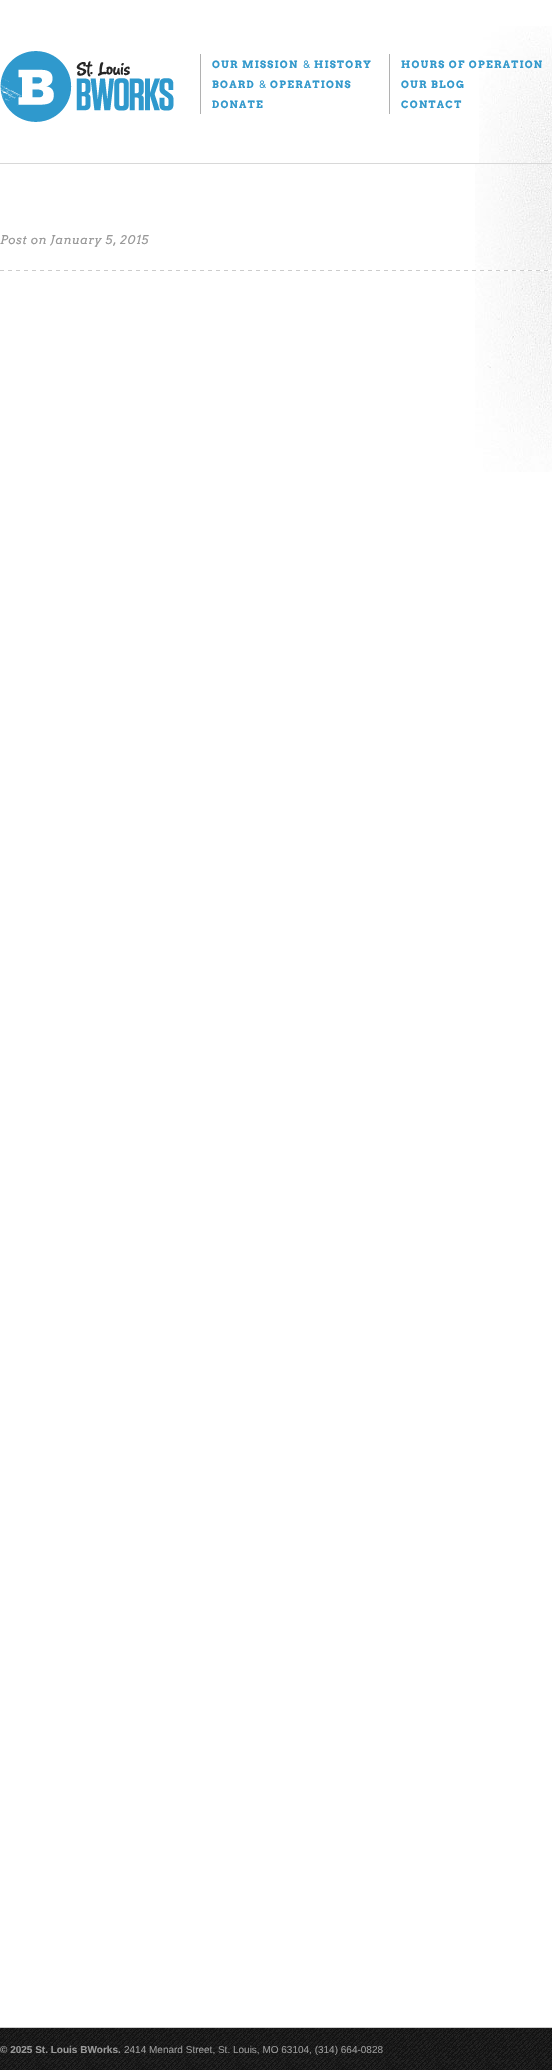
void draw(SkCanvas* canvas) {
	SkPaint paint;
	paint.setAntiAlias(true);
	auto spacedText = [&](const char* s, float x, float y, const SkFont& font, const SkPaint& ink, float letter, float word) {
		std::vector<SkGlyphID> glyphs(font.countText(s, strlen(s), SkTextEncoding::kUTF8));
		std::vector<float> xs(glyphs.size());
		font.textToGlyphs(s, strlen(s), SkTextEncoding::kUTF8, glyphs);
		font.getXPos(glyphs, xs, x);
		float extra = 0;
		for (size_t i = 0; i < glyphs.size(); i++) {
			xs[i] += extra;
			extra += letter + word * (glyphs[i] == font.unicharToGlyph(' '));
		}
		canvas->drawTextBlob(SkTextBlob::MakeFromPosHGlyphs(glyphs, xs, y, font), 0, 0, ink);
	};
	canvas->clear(0xffffffff);
	canvas->drawImageRect(SkImages::DeferredFromEncodedData(SkData::MakeFromFileName("img1.png")), SkRect::MakeXYWH(475, 164, 77, 308), SkSamplingOptions());
	canvas->drawImageRect(SkImages::DeferredFromEncodedData(SkData::MakeFromFileName("img2.png")), SkRect::MakeXYWH(479, 26, 73, 137), SkSamplingOptions());
	paint.setColor(0xffd8d8d8);
	canvas->drawRect(SkRect::MakeXYWH(0, 163, 552, 1), paint);
	canvas->drawImageRect(SkImages::DeferredFromEncodedData(SkData::MakeFromFileName("img3.png")), SkRect::MakeXYWH(0, 51, 174, 71), SkSamplingOptions());
	paint.setColor(0xffb1b1b1);
	canvas->drawRect(SkRect::MakeXYWH(200, 54, 1, 60), paint);
	canvas->drawRect(SkRect::MakeXYWH(389, 54, 1, 60), paint);
	SkFont f1(fontMgr->matchFamilyStyle("Arvo", SkFontStyle::Bold()), 10);
	f1.setSubpixel(true);
	paint.setColor(0xff3399cc);
	spacedText("OUR MISSION", 212, 68, f1, paint, 1.25, 0);
	SkFont f2(fontMgr->matchFamilyStyle("Arvo", SkFontStyle::Normal()), 10);
	f2.setSubpixel(true);
	spacedText("&", 303, 68, f2, paint, 1.25, 0);
	spacedText("HISTORY", 314, 68, f1, paint, 1.25, 0);
	spacedText("HOURS OF OPERATION", 401, 68, f1, paint, 1.25, 0);
	spacedText("BOARD", 212, 88, f1, paint, 1.25, 0);
	spacedText("&", 259, 88, f2, paint, 1.25, 0);
	spacedText("OPERATIONS", 270, 88, f1, paint, 1.25, 0);
	spacedText("OUR BLOG", 401, 88, f1, paint, 1.25, 0);
	spacedText("DONATE", 212, 108, f1, paint, 1.25, 0);
	spacedText("CONTACT", 401, 108, f1, paint, 1.25, 0);
	SkFont f3(fontMgr->matchFamilyStyle("Arvo", SkFontStyle::Italic()), 12);
	f3.setSubpixel(true);
	paint.setColor(0xff999999);
	spacedText("Post on January 5, 2015", 0, 244, f3, paint, 0.5, 0);
	canvas->drawImageRect(SkImages::DeferredFromEncodedData(SkData::MakeFromFileName("img4.png")), SkRect::MakeXYWH(0, 270, 552, 1), SkSamplingOptions());
	canvas->drawImageRect(SkImages::DeferredFromEncodedData(SkData::MakeFromFileName("img5.png")), SkRect::MakeXYWH(0, 2028, 552, 42), SkSamplingOptions());
	paint.setColor(0xffcccccc);
	canvas->drawRect(SkRect::MakeXYWH(0, 2027, 552, 1), paint);
	SkFont f4(fontMgr->matchFamilyStyle("Liberation Sans", SkFontStyle::Bold()), 10);
	f4.setSubpixel(true);
	paint.setColor(0xff999999);
	canvas->drawString("© 2025 St. Louis BWorks.", 0, 2053, f4, paint);
	SkFont f5(fontMgr->matchFamilyStyle("Liberation Sans", SkFontStyle::Normal()), 10);
	f5.setSubpixel(true);
	canvas->drawString("2414 Menard Street, St. Louis, MO 63104, (314) 664-0828", 124, 2053, f5, paint);
}
